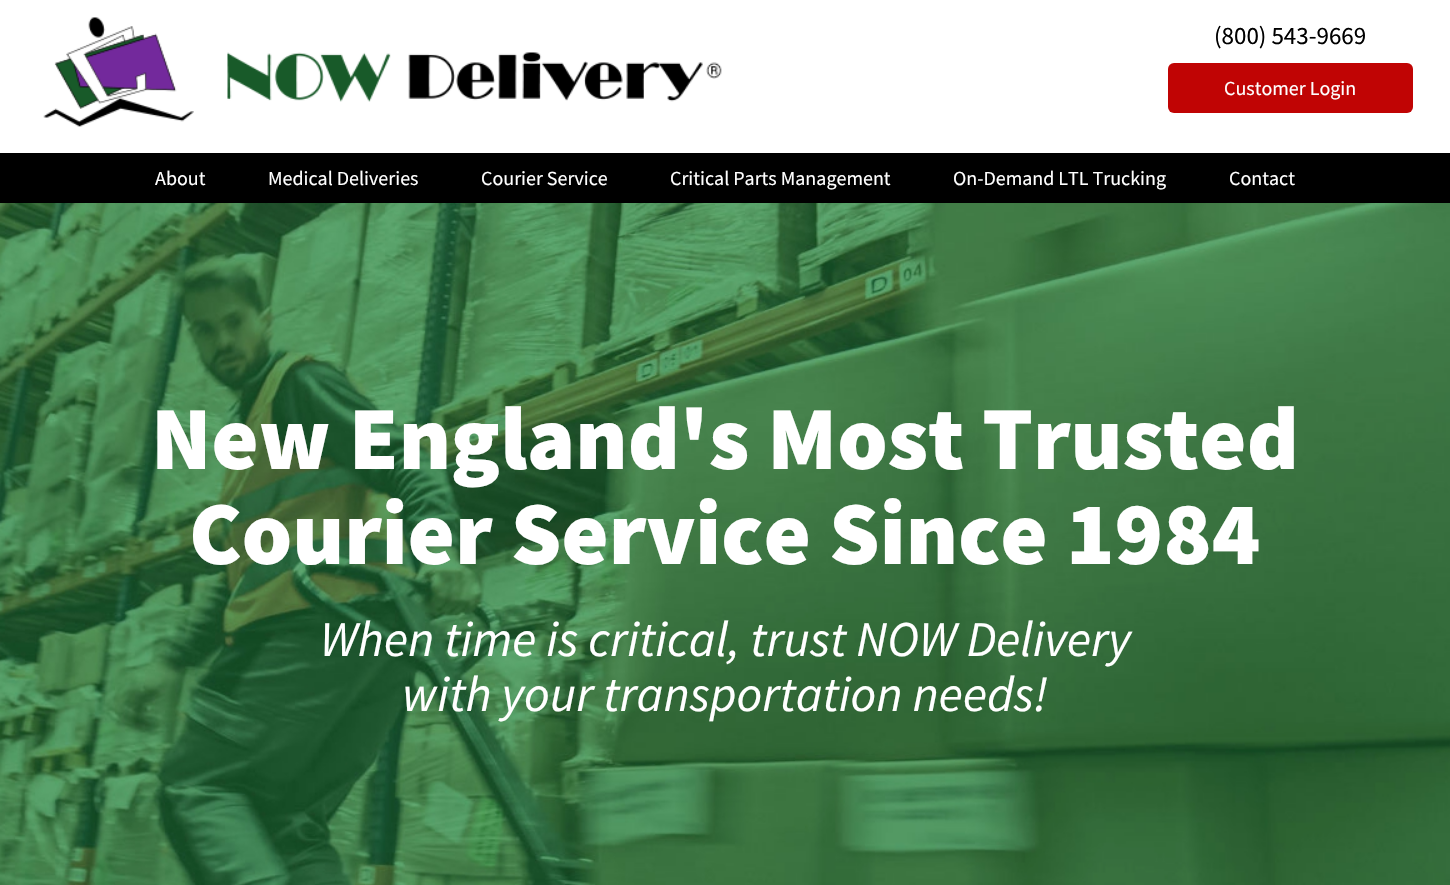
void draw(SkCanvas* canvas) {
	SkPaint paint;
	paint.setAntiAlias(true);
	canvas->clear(0xffffffff);
	canvas->drawImageRect(SkImages::DeferredFromEncodedData(SkData::MakeFromFileName("img1.png")), SkRect::MakeXYWH(43, 17, 679, 110), SkSamplingOptions());
	SkFont f1(fontMgr->matchFamilyStyle("Source Sans Pro", SkFontStyle::Normal()), 25);
	f1.setSubpixel(true);
	paint.setColor(0xff000000);
	canvas->drawString("(800) 543-9669", 1214, 44, f1, paint);
	paint.setColor(0xffc00404);
	canvas->drawRoundRect(SkRect::MakeXYWH(1168, 63, 245, 50), 6, 6, paint);
	SkFont f2(fontMgr->matchFamilyStyle("Source Sans Pro", SkFontStyle::Normal()), 20);
	f2.setSubpixel(true);
	paint.setColor(0xffffffff);
	canvas->drawString("Customer Login", 1224, 95, f2, paint);
	paint.setColor(0xff000000);
	canvas->drawRect(SkRect::MakeXYWH(0, 153, 1450, 50), paint);
	paint.setColor(0xffffffff);
	canvas->drawString("About", 155, 185, f2, paint);
	canvas->drawString("Medical Deliveries", 268, 185, f2, paint);
	canvas->drawString("Courier Service", 481, 185, f2, paint);
	canvas->drawString("Critical Parts Management", 670, 185, f2, paint);
	canvas->drawString("On-Demand LTL Trucking", 953, 185, f2, paint);
	canvas->drawString("Contact", 1229, 185, f2, paint);
	canvas->drawImageRect(SkImages::DeferredFromEncodedData(SkData::MakeFromFileName("img2.png")), SkRect::MakeXYWH(0, 203, 1450, 682), SkSamplingOptions());
	SkFont f3(fontMgr->matchFamilyStyle("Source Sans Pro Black", SkFontStyle(900, SkFontStyle::kNormal_Width, SkFontStyle::kUpright_Slant)), 90);
	f3.setSubpixel(true);
	canvas->drawString("New England's Most Trusted", 151, 469, f3, paint);
	canvas->drawString("Courier Service Since 1984", 189, 564, f3, paint);
	SkFont f4(fontMgr->matchFamilyStyle("Source Sans Pro", SkFontStyle::Italic()), 50);
	f4.setSubpixel(true);
	canvas->drawString("When time is critical, trust NOW Delivery", 320, 656, f4, paint);
	canvas->drawString("with your transportation needs!", 402, 711, f4, paint);
}
